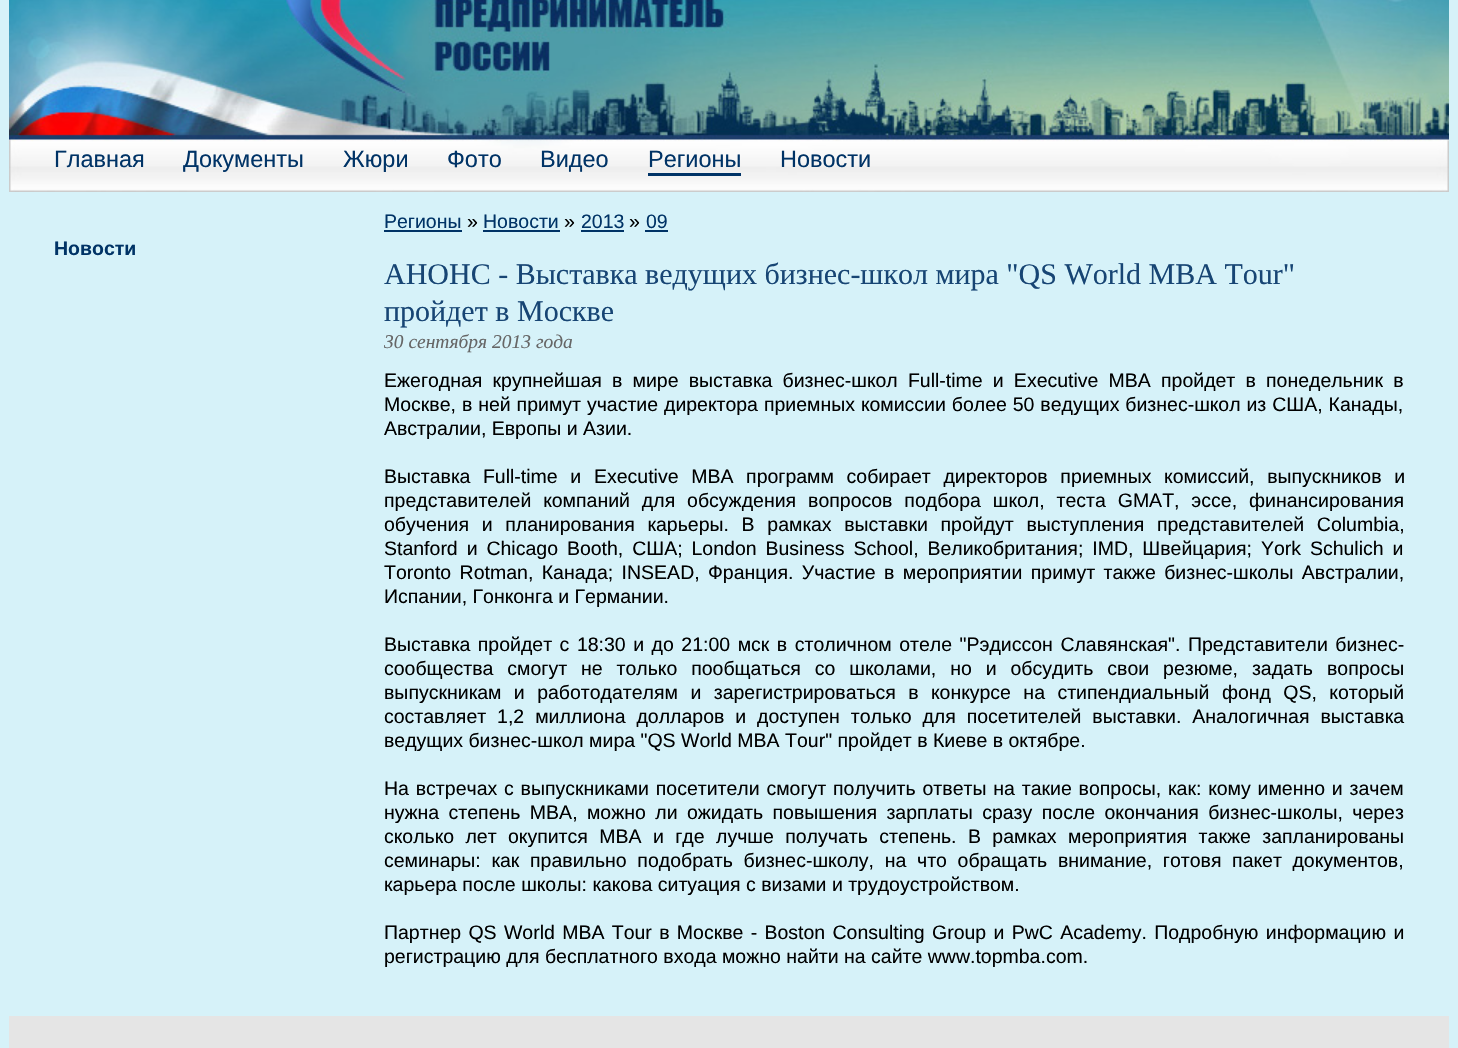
void draw(SkCanvas* canvas) {
	SkPaint paint;
	paint.setAntiAlias(true);
	auto spacedText = [&](const char* s, float x, float y, const SkFont& font, const SkPaint& ink, float letter, float word) {
		std::vector<SkGlyphID> glyphs(font.countText(s, strlen(s), SkTextEncoding::kUTF8));
		std::vector<float> xs(glyphs.size());
		font.textToGlyphs(s, strlen(s), SkTextEncoding::kUTF8, glyphs);
		font.getXPos(glyphs, xs, x);
		float extra = 0;
		for (size_t i = 0; i < glyphs.size(); i++) {
			xs[i] += extra;
			extra += letter + word * (glyphs[i] == font.unicharToGlyph(' '));
		}
		canvas->drawTextBlob(SkTextBlob::MakeFromPosHGlyphs(glyphs, xs, y, font), 0, 0, ink);
	};
	canvas->clear(0xffd6f2f9);
	canvas->drawImageRect(SkImages::DeferredFromEncodedData(SkData::MakeFromFileName("img1.png")), SkRect::MakeXYWH(9, 0, 1440, 192), SkSamplingOptions());
	SkFont f1(fontMgr->matchFamilyStyle("Liberation Sans", SkFontStyle::Normal()), 23.5);
	f1.setSubpixel(true);
	paint.setColor(0xff003366);
	canvas->drawString("Главная", 54, 167, f1, paint);
	canvas->drawString("Документы", 183, 167, f1, paint);
	canvas->drawString("Жюри", 343, 167, f1, paint);
	canvas->drawString("Фото", 447, 167, f1, paint);
	canvas->drawString("Видео", 540, 167, f1, paint);
	canvas->drawRect(SkRect::MakeXYWH(648, 173, 93, 3), paint);
	canvas->drawString("Регионы", 648, 167, f1, paint);
	canvas->drawString("Новости", 780, 167, f1, paint);
	SkFont f2(fontMgr->matchFamilyStyle("Liberation Sans", SkFontStyle::Bold()), 19.5);
	f2.setSubpixel(true);
	canvas->drawString("Новости", 54, 255, f2, paint);
	SkFont f3(fontMgr->matchFamilyStyle("Liberation Sans", SkFontStyle::Normal()), 19.5);
	f3.setSubpixel(true);
	canvas->drawString("Регионы", 384, 228, f3, paint);
	canvas->drawRect(SkRect::MakeXYWH(384, 230, 78, 2), paint);
	paint.setColor(0xff000000);
	canvas->drawString("»", 467, 228, f3, paint);
	paint.setColor(0xff003366);
	canvas->drawString("Новости", 483, 228, f3, paint);
	canvas->drawRect(SkRect::MakeXYWH(483, 230, 77, 2), paint);
	paint.setColor(0xff000000);
	canvas->drawString("»", 564, 228, f3, paint);
	paint.setColor(0xff003366);
	canvas->drawString("2013", 581, 228, f3, paint);
	canvas->drawRect(SkRect::MakeXYWH(581, 230, 43, 2), paint);
	paint.setColor(0xff000000);
	canvas->drawString("»", 629, 228, f3, paint);
	paint.setColor(0xff003366);
	canvas->drawString("09", 646, 228, f3, paint);
	canvas->drawRect(SkRect::MakeXYWH(645, 230, 23, 2), paint);
	SkFont f4(fontMgr->matchFamilyStyle("Liberation Serif", SkFontStyle::Normal()), 30);
	f4.setSubpixel(true);
	paint.setColor(0xff174574);
	canvas->drawString("АНОНС - Выставка ведущих бизнес-школ мира \"QS World MBA Tour\"", 384, 284, f4, paint);
	canvas->drawString("пройдет в Москве", 384, 321, f4, paint);
	SkFont f5(fontMgr->matchFamilyStyle("Liberation Serif", SkFontStyle::Italic()), 19.5);
	f5.setSubpixel(true);
	paint.setColor(0xff666666);
	canvas->drawString("30 сентября 2013 года", 384, 348, f5, paint);
	paint.setColor(0xff000000);
	spacedText("Ежегодная крупнейшая в мире выставка бизнес-школ Full-time и Executive MBA пройдет в понедельник в", 384, 387, f3, paint, 0, 4.75);
	spacedText("Москве, в ней примут участие директора приемных комиссии более 50 ведущих бизнес-школ из США, Канады,", 384, 411, f3, paint, 0, 0.5);
	canvas->drawString("Австралии, Европы и Азии.", 384, 435, f3, paint);
	spacedText("Выставка Full-time и Executive MBA программ собирает директоров приемных комиссий, выпускников и", 384, 483, f3, paint, 0, 7.25);
	spacedText("представителей компаний для обсуждения вопросов подбора школ, теста GMAT, эссе, финансирования", 384, 507, f3, paint, 0, 6.5);
	spacedText("обучения и планирования карьеры. В рамках выставки пройдут выступления представителей Columbia,", 384, 531, f3, paint, 0, 7.25);
	spacedText("Stanford и Chicago Booth, США; London Business School, Великобритания; IMD, Швейцария; York Schulich и", 384, 555, f3, paint, 0, 3.5);
	spacedText("Toronto Rotman, Канада; INSEAD, Франция. Участие в мероприятии примут также бизнес-школы Австралии,", 384, 579, f3, paint, 0, 3);
	canvas->drawString("Испании, Гонконга и Германии.", 384, 603, f3, paint);
	spacedText("Выставка пройдет с 18:30 и до 21:00 мск в столичном отеле \"Рэдиссон Славянская\". Представители бизнес-", 384, 651, f3, paint, 0, 2.1);
	spacedText("сообщества смогут не только пообщаться со школами, но и обсудить свои резюме, задать вопросы", 384, 675, f3, paint, 0, 8.5);
	spacedText("выпускникам и работодателям и зарегистрироваться в конкурсе на стипендиальный фонд QS, который", 384, 699, f3, paint, 0, 7);
	spacedText("составляет 1,2 миллиона долларов и доступен только для посетителей выставки. Аналогичная выставка", 384, 723, f3, paint, 0, 5.5);
	canvas->drawString("ведущих бизнес-школ мира \"QS World MBA Tour\" пройдет в Киеве в октябре.", 384, 747, f3, paint);
	spacedText("На встречах с выпускниками посетители смогут получить ответы на такие вопросы, как: кому именно и зачем", 384, 795, f3, paint, 0, 1.4);
	spacedText("нужна степень МВА, можно ли ожидать повышения зарплаты сразу после окончания бизнес-школы, через", 384, 819, f3, paint, 0, 4);
	spacedText("сколько лет окупится МВА и где лучше получать степень. В рамках мероприятия также запланированы", 384, 843, f3, paint, 0, 6);
	spacedText("семинары: как правильно подобрать бизнес-школу, на что обращать внимание, готовя пакет документов,", 384, 867, f3, paint, 0, 5.25);
	canvas->drawString("карьера после школы: какова ситуация с визами и трудоустройством.", 384, 891, f3, paint);
	spacedText("Партнер QS World MBA Tour в Москве - Boston Consulting Group и PwC Academy. Подробную информацию и", 384, 939, f3, paint, 0, 1.9);
	canvas->drawString("регистрацию для бесплатного входа можно найти на сайте www.topmba.com.", 384, 963, f3, paint);
	paint.setColor(0xffe5e5e5);
	canvas->drawRect(SkRect::MakeXYWH(9, 1016, 1440, 32), paint);
}
